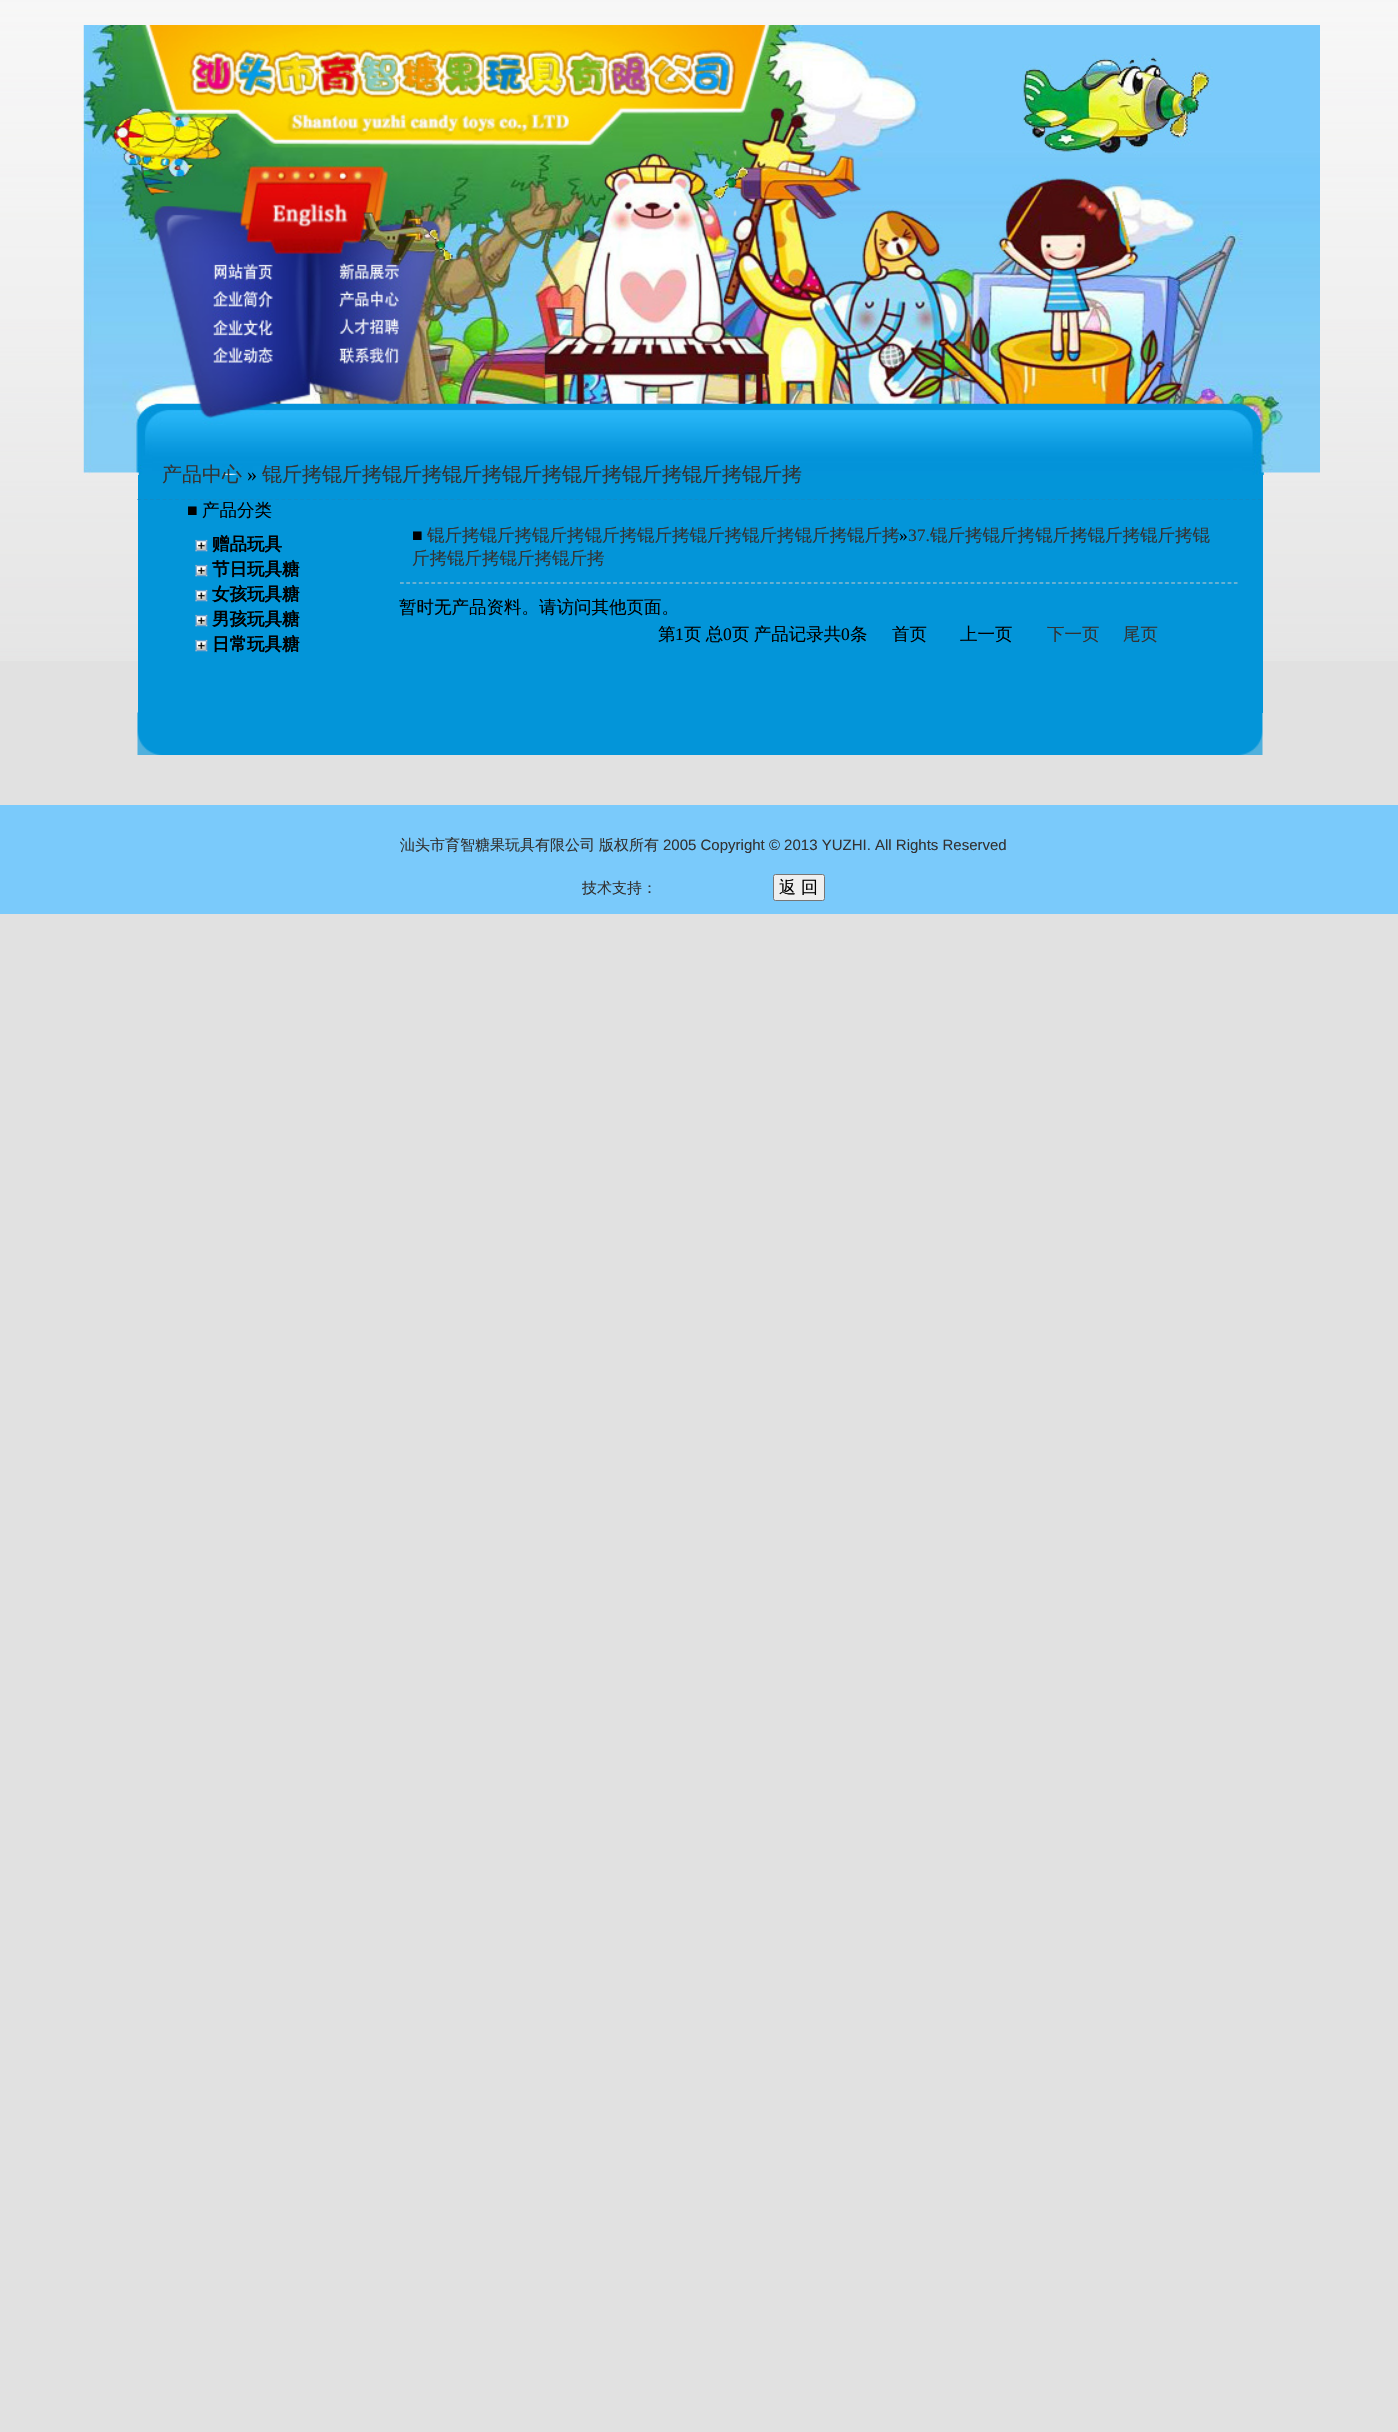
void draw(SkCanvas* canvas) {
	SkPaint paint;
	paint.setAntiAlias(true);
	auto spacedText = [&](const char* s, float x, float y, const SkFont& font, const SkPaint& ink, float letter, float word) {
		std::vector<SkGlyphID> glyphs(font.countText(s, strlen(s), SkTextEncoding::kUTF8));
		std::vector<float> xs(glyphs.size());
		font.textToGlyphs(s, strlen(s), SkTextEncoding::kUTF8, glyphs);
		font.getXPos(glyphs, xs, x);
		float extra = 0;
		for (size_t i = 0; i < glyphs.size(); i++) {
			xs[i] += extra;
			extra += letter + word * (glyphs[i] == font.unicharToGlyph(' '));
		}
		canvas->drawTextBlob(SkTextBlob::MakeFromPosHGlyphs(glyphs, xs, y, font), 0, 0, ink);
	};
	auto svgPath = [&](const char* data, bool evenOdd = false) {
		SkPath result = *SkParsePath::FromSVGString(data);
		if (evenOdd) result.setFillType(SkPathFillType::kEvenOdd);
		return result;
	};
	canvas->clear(0xffe1e1e1);
	canvas->drawImageRect(SkImages::DeferredFromEncodedData(SkData::MakeFromFileName("img1.png")), SkRect::MakeXYWH(0, 0, 1398, 661), SkSamplingOptions());
	canvas->drawImageRect(SkImages::DeferredFromEncodedData(SkData::MakeFromFileName("img2.png")), SkRect::MakeXYWH(82, 25, 1238, 450), SkSamplingOptions());
	paint.setColor(0xff0395d9);
	canvas->drawRect(SkRect::MakeXYWH(138, 475, 1125, 238), paint);
	paint.setStroke(true);
	paint.setStrokeWidth(1.2);
	paint.setColor(0xff108cc8);
	paint.setPathEffect(SkDashPathEffect::Make({{3.75f, 2.51f}}, 0));
	canvas->drawPath(svgPath("M137.5 499.5H1262.5"), paint);
	paint.setPathEffect(nullptr);
	SkFont f1(fontMgr->matchFamilyStyle("WenQuanYi Zen Hei", SkFontStyle(500, SkFontStyle::kNormal_Width, SkFontStyle::kUpright_Slant)), 20);
	f1.setSubpixel(true);
	paint.setStroke(false);
	paint.setColor(0xff333333);
	canvas->drawString("产品中心", 162, 481, f1, paint);
	SkFont f2(fontMgr->matchFamilyStyle("Liberation Serif", SkFontStyle::Normal()), 20);
	f2.setSubpixel(true);
	paint.setColor(0xff000000);
	canvas->drawString("»", 247, 481, f2, paint);
	paint.setColor(0xff333333);
	canvas->drawString("锟斤拷锟斤拷锟斤拷锟斤拷锟斤拷锟斤拷锟斤拷锟斤拷锟斤拷", 262, 481, f1, paint);
	SkFont f3(fontMgr->matchFamilyStyle("Liberation Serif", SkFontStyle::Bold()), 17.5);
	f3.setSubpixel(true);
	paint.setColor(0xff000000);
	canvas->drawString("■", 187, 516, f3, paint);
	SkFont f4(fontMgr->matchFamilyStyle("WenQuanYi Zen Hei", SkFontStyle(500, SkFontStyle::kNormal_Width, SkFontStyle::kUpright_Slant)), 17.5);
	f4.setSubpixel(true);
	canvas->drawString("产品分类", 202, 516, f4, paint);
	canvas->drawImageRect(SkImages::DeferredFromEncodedData(SkData::MakeFromFileName("img3.png")), SkRect::MakeXYWH(195, 539, 13, 13), SkSamplingOptions());
	SkFont f5(fontMgr->matchFamilyStyle("WenQuanYi Zen Hei", SkFontStyle::Bold()), 17.5);
	f5.setSubpixel(true);
	canvas->drawString("赠品玩具", 212, 550, f5, paint);
	canvas->drawImageRect(SkImages::DeferredFromEncodedData(SkData::MakeFromFileName("img3.png")), SkRect::MakeXYWH(195, 564, 13, 13), SkSamplingOptions());
	canvas->drawString("节日玩具糖", 212, 575, f5, paint);
	canvas->drawImageRect(SkImages::DeferredFromEncodedData(SkData::MakeFromFileName("img4.png")), SkRect::MakeXYWH(195, 589, 13, 13), SkSamplingOptions());
	canvas->drawString("女孩玩具糖", 212, 600, f5, paint);
	canvas->drawImageRect(SkImages::DeferredFromEncodedData(SkData::MakeFromFileName("img3.png")), SkRect::MakeXYWH(195, 614, 13, 13), SkSamplingOptions());
	canvas->drawString("男孩玩具糖", 212, 625, f5, paint);
	canvas->drawImageRect(SkImages::DeferredFromEncodedData(SkData::MakeFromFileName("img3.png")), SkRect::MakeXYWH(195, 639, 13, 13), SkSamplingOptions());
	canvas->drawString("日常玩具糖", 212, 650, f5, paint);
	paint.setStroke(true);
	paint.setColor(0xffcccccc);
	paint.setPathEffect(SkDashPathEffect::Make({{3.75f, 2.52f}}, 0));
	canvas->drawPath(svgPath("M400 583H1237.5"), paint);
	paint.setPathEffect(nullptr);
	SkFont f6(fontMgr->matchFamilyStyle("Liberation Serif", SkFontStyle::Normal()), 17.5);
	f6.setSubpixel(true);
	paint.setStroke(false);
	paint.setColor(0xff000000);
	canvas->drawString("■", 412, 541, f6, paint);
	paint.setColor(0xff333333);
	canvas->drawString("锟斤拷锟斤拷锟斤拷锟斤拷锟斤拷锟斤拷锟斤拷锟斤拷锟斤拷", 427, 541, f4, paint);
	paint.setColor(0xff000000);
	canvas->drawString("»", 899, 541, f6, paint);
	paint.setColor(0xff333333);
	canvas->drawString("37.", 908, 541, f6, paint);
	canvas->drawString("锟斤拷锟斤拷锟斤拷锟斤拷锟斤拷锟", 930, 541, f4, paint);
	canvas->drawString("斤拷锟斤拷锟斤拷锟斤拷", 412, 564, f4, paint);
	paint.setColor(0xff000000);
	canvas->drawString("暂时无产品资料。请访问其他页面。", 399, 613, f4, paint);
	canvas->drawString("第", 658, 640, f4, paint);
	canvas->drawString("1", 675, 640, f6, paint);
	spacedText("页 总", 684, 640, f4, paint, 0, -1);
	canvas->drawString("0", 723, 640, f6, paint);
	spacedText("页 产品记录共", 732, 640, f4, paint, 0, -1);
	canvas->drawString("0", 841, 640, f6, paint);
	canvas->drawString("条", 850, 640, f4, paint);
	canvas->drawString("首页", 892, 640, f4, paint);
	canvas->drawString("上一页", 960, 640, f4, paint);
	paint.setColor(0xff333333);
	canvas->drawString("下一页", 1047, 640, f4, paint);
	canvas->drawString("尾页", 1123, 640, f4, paint);
	canvas->drawImageRect(SkImages::DeferredFromEncodedData(SkData::MakeFromFileName("img5.png")), SkRect::MakeXYWH(137, 712, 1126, 43), SkSamplingOptions());
	paint.setColor(0xff7acafb);
	canvas->drawRect(SkRect::MakeXYWH(0, 805, 1398, 109), paint);
	SkFont f7(fontMgr->matchFamilyStyle("WenQuanYi Zen Hei", SkFontStyle(500, SkFontStyle::kNormal_Width, SkFontStyle::kUpright_Slant)), 15);
	f7.setSubpixel(true);
	paint.setColor(0xff333333);
	canvas->drawString("汕头市育智糖果玩具有限公司", 400, 850, f7, paint);
	canvas->drawString("版权所有", 599, 850, f7, paint);
	SkFont f8(fontMgr->matchFamilyStyle("Liberation Sans", SkFontStyle::Normal()), 15);
	f8.setSubpixel(true);
	canvas->drawString("2005 Copyright © 2013 YUZHI. All Rights Reserved", 663, 850, f8, paint);
	canvas->drawString("技术支持：", 582, 893, f7, paint);
	paint.setColor(0xffefefef);
	canvas->drawRoundRect(SkRect::MakeXYWH(773.5, 874.5, 51, 26), 2, 2, paint);
	paint.setStroke(true);
	paint.setStrokeWidth(1);
	paint.setColor(0xff767676);
	canvas->drawRoundRect(SkRect::MakeXYWH(773.5, 874.5, 51, 26), 2, 2, paint);
	SkFont f9(fontMgr->matchFamilyStyle("WenQuanYi Zen Hei", SkFontStyle(500, SkFontStyle::kNormal_Width, SkFontStyle::kUpright_Slant)), 17);
	f9.setSubpixel(true);
	paint.setStroke(false);
	paint.setColor(0xff000000);
	canvas->drawString("返 回", 779, 893, f9, paint);
}
